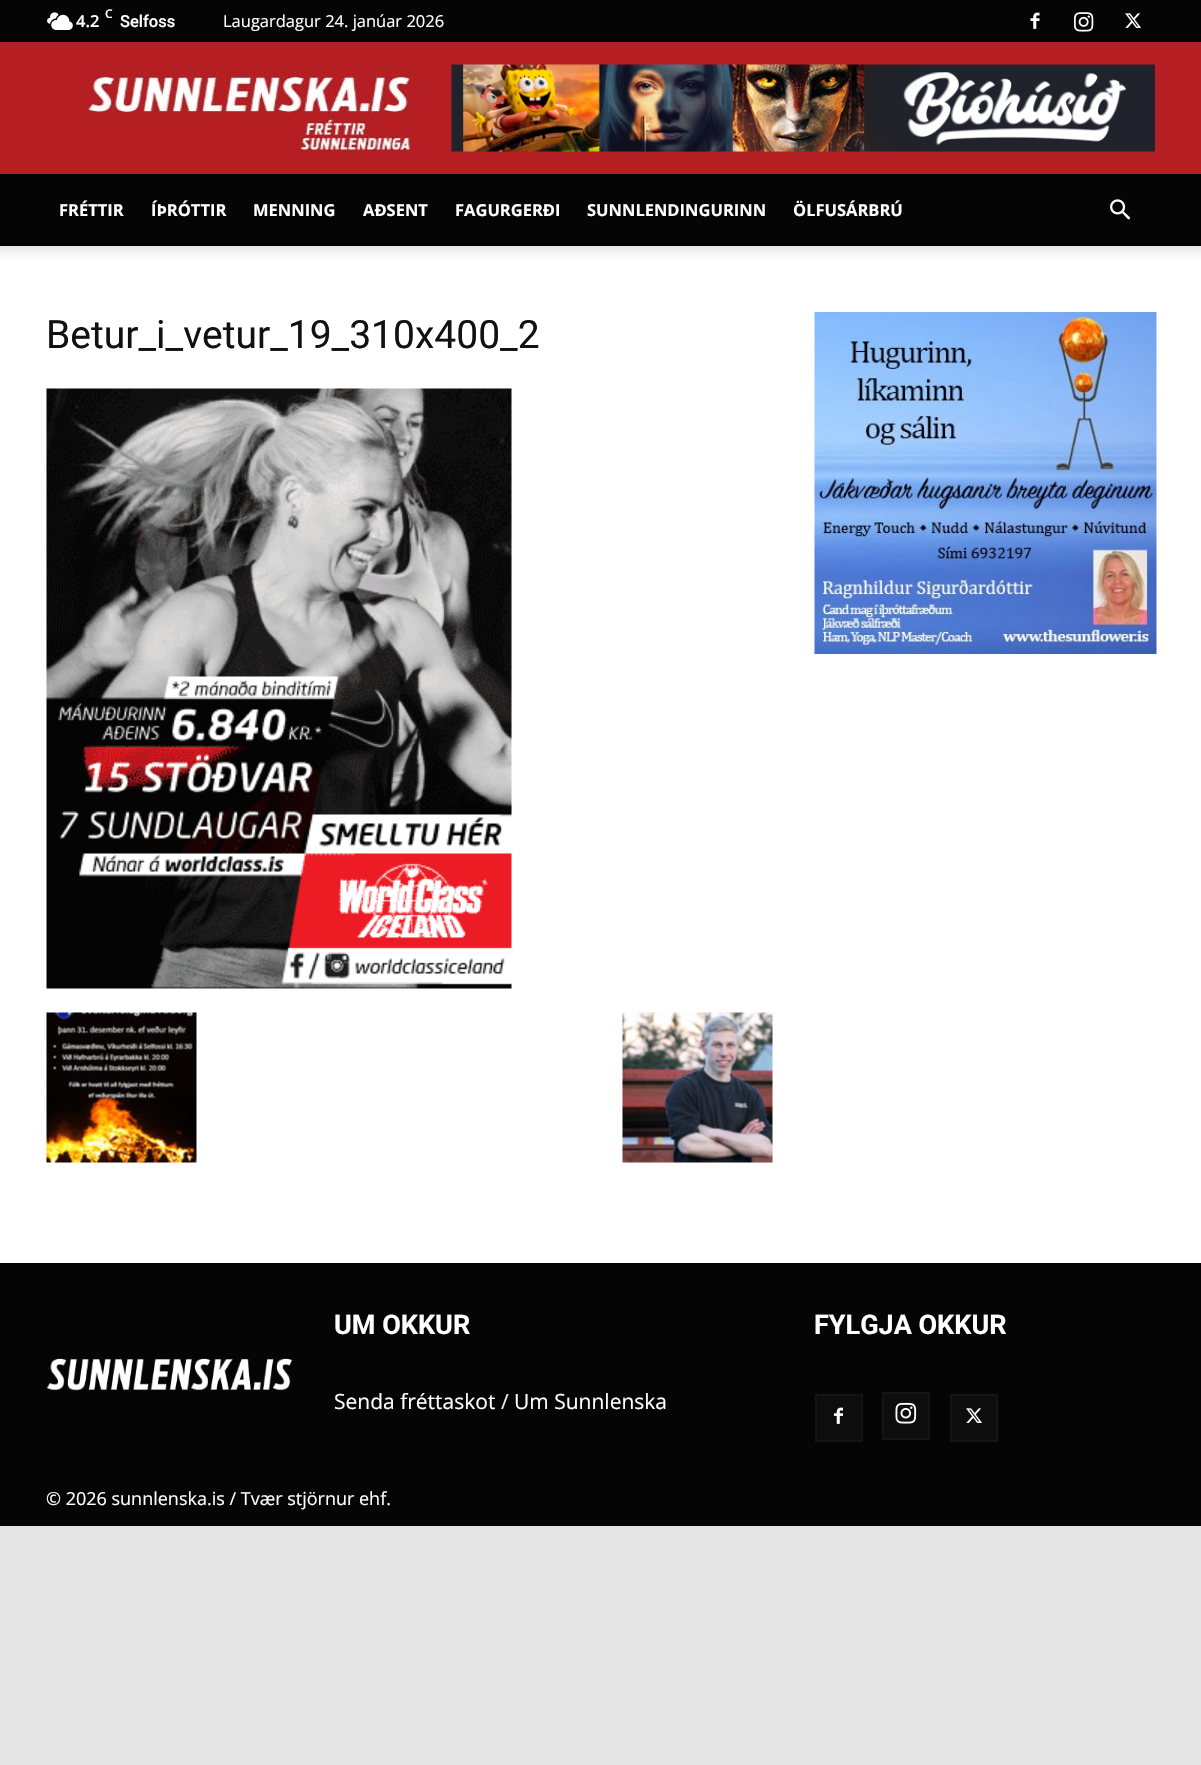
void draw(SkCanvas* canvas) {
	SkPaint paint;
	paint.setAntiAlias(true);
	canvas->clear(0xffe5e5e5);
	paint.setColor(0xff050505);
	canvas->drawRect(SkRect::MakeXYWH(0, 0, 1201, 42), paint);
	canvas->drawImageRect(SkImages::DeferredFromEncodedData(SkData::MakeFromFileName("img1.png")), SkRect::MakeXYWH(47, 12, 26, 18), SkSamplingOptions());
	SkFont f1(fontMgr->matchFamilyStyle("Open Sans", SkFontStyle(600, SkFontStyle::kNormal_Width, SkFontStyle::kUpright_Slant)), 12);
	f1.setSubpixel(true);
	paint.setColor(0xffffffff);
	canvas->drawString("C", 105, 18, f1, paint);
	SkFont f2(fontMgr->matchFamilyStyle("Open Sans", SkFontStyle(600, SkFontStyle::kNormal_Width, SkFontStyle::kUpright_Slant)), 16.5);
	f2.setSubpixel(true);
	canvas->drawString("4.2", 76, 27, f2, paint);
	SkFont f3(fontMgr->matchFamilyStyle("Roboto", SkFontStyle(500, SkFontStyle::kNormal_Width, SkFontStyle::kUpright_Slant)), 16.5);
	f3.setSubpixel(true);
	canvas->drawString("Selfoss", 120, 27, f3, paint);
	SkFont f4(fontMgr->matchFamilyStyle("Open Sans", SkFontStyle::Normal()), 16.5);
	f4.setSubpixel(true);
	canvas->drawString("Laugardagur 24. janúar 2026", 223, 27, f4, paint);
	canvas->drawImageRect(SkImages::DeferredFromEncodedData(SkData::MakeFromFileName("img2.png")), SkRect::MakeXYWH(1030, 12, 10, 17), SkSamplingOptions());
	canvas->drawImageRect(SkImages::DeferredFromEncodedData(SkData::MakeFromFileName("img3.png")), SkRect::MakeXYWH(1074, 12, 20, 20), SkSamplingOptions());
	canvas->drawImageRect(SkImages::DeferredFromEncodedData(SkData::MakeFromFileName("img4.png")), SkRect::MakeXYWH(1125, 13, 16, 15), SkSamplingOptions());
	paint.setColor(0xffb51f23);
	canvas->drawRect(SkRect::MakeXYWH(0, 42, 1201, 132), paint);
	canvas->drawImageRect(SkImages::DeferredFromEncodedData(SkData::MakeFromFileName("img5.png")), SkRect::MakeXYWH(88, 63, 322, 90), SkSamplingOptions());
	canvas->drawImageRect(SkImages::DeferredFromEncodedData(SkData::MakeFromFileName("img6.png")), SkRect::MakeXYWH(451, 64, 704, 88), SkSamplingOptions());
	paint.setColor(0xff050505);
	canvas->drawRect(SkRect::MakeXYWH(0, 174, 1201, 72), paint);
	SkFont f5(fontMgr->matchFamilyStyle("Open Sans", SkFontStyle::Bold()), 16.5);
	f5.setSubpixel(true);
	paint.setColor(0xffffffff);
	canvas->drawString("FRÉTTIR", 59, 216, f5, paint);
	canvas->drawString("ÍÞRÓTTIR", 151, 216, f5, paint);
	canvas->drawString("MENNING", 253, 216, f5, paint);
	canvas->drawString("AÐSENT", 363, 216, f5, paint);
	canvas->drawString("FAGURGERÐI", 455, 216, f5, paint);
	canvas->drawString("SUNNLENDINGURINN", 587, 216, f5, paint);
	canvas->drawString("ÖLFUSÁRBRÚ", 793, 216, f5, paint);
	canvas->drawImageRect(SkImages::DeferredFromEncodedData(SkData::MakeFromFileName("img7.png")), SkRect::MakeXYWH(1110, 199, 20, 21), SkSamplingOptions());
	canvas->drawRect(SkRect::MakeXYWH(0, 246, 1201, 1017), paint);
	canvas->drawImageRect(SkImages::DeferredFromEncodedData(SkData::MakeFromFileName("img8.png")), SkRect::MakeXYWH(0, 246, 1201, 13), SkSamplingOptions());
	SkFont f6(fontMgr->matchFamilyStyle("Roboto", SkFontStyle::Normal()), 39);
	f6.setSubpixel(true);
	paint.setColor(0xff111111);
	canvas->drawString("Betur_i_vetur_19_310x400_2", 46, 348, f6, paint);
	canvas->drawImageRect(SkImages::DeferredFromEncodedData(SkData::MakeFromFileName("img9.png")), SkRect::MakeXYWH(46, 388, 466, 601), SkSamplingOptions());
	canvas->drawImageRect(SkImages::DeferredFromEncodedData(SkData::MakeFromFileName("img10.png")), SkRect::MakeXYWH(46, 1012, 151, 151), SkSamplingOptions());
	canvas->drawImageRect(SkImages::DeferredFromEncodedData(SkData::MakeFromFileName("img11.png")), SkRect::MakeXYWH(622, 1012, 151, 151), SkSamplingOptions());
	canvas->drawImageRect(SkImages::DeferredFromEncodedData(SkData::MakeFromFileName("img12.png")), SkRect::MakeXYWH(814, 312, 343, 342), SkSamplingOptions());
	paint.setColor(0xff050505);
	canvas->drawRect(SkRect::MakeXYWH(0, 1263, 1201, 263), paint);
	SkFont f7(fontMgr->matchFamilyStyle("Roboto", SkFontStyle::Bold()), 27);
	f7.setSubpixel(true);
	paint.setColor(0xffffffff);
	canvas->drawString("UM OKKUR", 334, 1334, f7, paint);
	SkFont f8(fontMgr->matchFamilyStyle("Open Sans", SkFontStyle::Normal()), 21);
	f8.setSubpixel(true);
	canvas->drawString("Senda fréttaskot", 334, 1409, f8, paint);
	paint.setColor(0xffeaeaea);
	canvas->drawString("/", 501, 1409, f8, paint);
	paint.setColor(0xffffffff);
	canvas->drawString("Um Sunnlenska", 514, 1409, f8, paint);
	canvas->drawString("FYLGJA OKKUR", 814, 1334, f7, paint);
	paint.setColor(0xff0d0d0d);
	canvas->drawRect(SkRect::MakeXYWH(817, 1396, 44, 44), paint);
	canvas->drawImageRect(SkImages::DeferredFromEncodedData(SkData::MakeFromFileName("img13.png")), SkRect::MakeXYWH(834, 1407, 9, 17), SkSamplingOptions());
	paint.setStroke(true);
	paint.setStrokeWidth(2);
	paint.setColor(0xff141414);
	canvas->drawRect(SkRect::MakeXYWH(816, 1395, 46, 46), paint);
	paint.setStroke(false);
	paint.setColor(0xff0d0d0d);
	canvas->drawRect(SkRect::MakeXYWH(884, 1394, 44, 44), paint);
	canvas->drawImageRect(SkImages::DeferredFromEncodedData(SkData::MakeFromFileName("img14.png")), SkRect::MakeXYWH(895, 1402, 22, 22), SkSamplingOptions());
	paint.setStroke(true);
	paint.setColor(0xff141414);
	canvas->drawRect(SkRect::MakeXYWH(883, 1393, 46, 46), paint);
	paint.setStroke(false);
	paint.setColor(0xff0d0d0d);
	canvas->drawRect(SkRect::MakeXYWH(952, 1396, 44, 44), paint);
	canvas->drawImageRect(SkImages::DeferredFromEncodedData(SkData::MakeFromFileName("img15.png")), SkRect::MakeXYWH(966, 1408, 16, 15), SkSamplingOptions());
	paint.setStroke(true);
	paint.setColor(0xff141414);
	canvas->drawRect(SkRect::MakeXYWH(951, 1395, 46, 46), paint);
	canvas->drawImageRect(SkImages::DeferredFromEncodedData(SkData::MakeFromFileName("img16.png")), SkRect::MakeXYWH(46, 1358, 247, 33), SkSamplingOptions());
	SkFont f9(fontMgr->matchFamilyStyle("Open Sans", SkFontStyle::Normal()), 18);
	f9.setSubpixel(true);
	paint.setStroke(false);
	paint.setColor(0xffffffff);
	canvas->drawString("© 2026 sunnlenska.is / Tvær stjörnur ehf.", 46, 1505, f9, paint);
}
